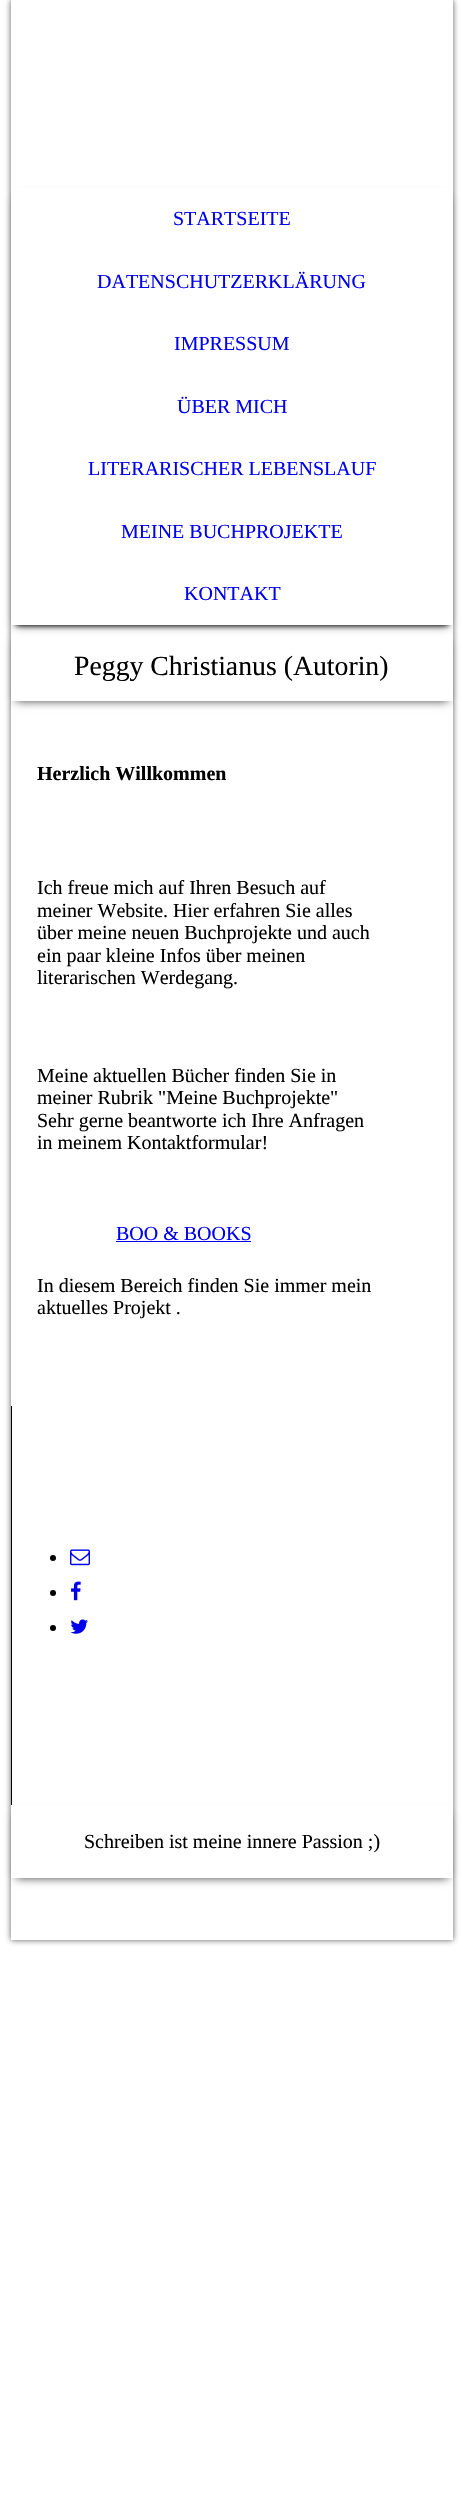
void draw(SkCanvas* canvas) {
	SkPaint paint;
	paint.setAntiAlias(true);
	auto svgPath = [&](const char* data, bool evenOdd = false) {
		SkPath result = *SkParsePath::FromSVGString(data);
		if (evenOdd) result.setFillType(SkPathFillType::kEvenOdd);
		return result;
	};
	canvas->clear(0xffffffff);
	canvas->save();
	canvas->clipPath(svgPath("M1 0H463V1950H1ZM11 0H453V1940H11Z", true), true);
	paint.setColor(0xb3141414);
	paint.setMaskFilter(SkMaskFilter::MakeBlur(kNormal_SkBlurStyle, 3));
	canvas->drawRect(SkRect::MakeXYWH(11, 0, 442, 1940), paint);
	paint.setMaskFilter(nullptr);
	canvas->restore();
	canvas->save();
	canvas->clipPath(svgPath("M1 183H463V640H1ZM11 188H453V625H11Z", true), true);
	paint.setColor(0xff444444);
	paint.setMaskFilter(SkMaskFilter::MakeBlur(kNormal_SkBlurStyle, 4.5));
	canvas->drawRect(SkRect::MakeXYWH(16, 198, 432, 427), paint);
	paint.setMaskFilter(nullptr);
	canvas->restore();
	SkFont f1(fontMgr->matchFamilyStyle("Liberation Serif", SkFontStyle::Normal()), 20);
	f1.setSubpixel(true);
	paint.setColor(0xff0000ee);
	canvas->drawString("STARTSEITE", 173, 225, f1, paint);
	canvas->drawString("DATENSCHUTZERKLÄRUNG", 97, 288, f1, paint);
	canvas->drawString("IMPRESSUM", 174, 350, f1, paint);
	canvas->drawString("ÜBER MICH", 177, 413, f1, paint);
	canvas->drawString("LITERARISCHER LEBENSLAUF", 88, 475, f1, paint);
	canvas->drawString("MEINE BUCHPROJEKTE", 121, 538, f1, paint);
	canvas->save();
	canvas->clipRect(SkRect::MakeXYWH(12, 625, 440, 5));
	paint.setColor(0xff000000);
	paint.setMaskFilter(SkMaskFilter::MakeBlur(kNormal_SkBlurStyle, 2.5));
	canvas->drawRect(SkRect::MakeXYWH(16, 573, 432, 52), paint);
	paint.setMaskFilter(nullptr);
	canvas->restore();
	paint.setColor(0xff0000ee);
	canvas->drawString("KONTAKT", 184, 600, f1, paint);
	canvas->save();
	canvas->clipPath(svgPath("M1 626H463V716H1ZM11 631H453V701H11Z", true), true);
	paint.setColor(0xff444444);
	paint.setMaskFilter(SkMaskFilter::MakeBlur(kNormal_SkBlurStyle, 4.5));
	canvas->drawRect(SkRect::MakeXYWH(16, 641, 432, 60), paint);
	paint.setMaskFilter(nullptr);
	canvas->restore();
	SkFont f2(fontMgr->matchFamilyStyle("Liberation Serif", SkFontStyle::Normal()), 27.75);
	f2.setSubpixel(true);
	paint.setColor(0xff000000);
	canvas->drawString("Peggy Christianus (Autorin)", 74, 675, f2, paint);
	SkFont f3(fontMgr->matchFamilyStyle("Liberation Serif", SkFontStyle::Bold()), 20);
	f3.setSubpixel(true);
	canvas->drawString("Herzlich Willkommen", 37, 780, f3, paint);
	canvas->drawString("Ich freue mich auf Ihren Besuch auf", 37, 894, f1, paint);
	canvas->drawString("meiner Website. Hier erfahren Sie alles", 37, 917, f1, paint);
	canvas->drawString("über meine neuen Buchprojekte und auch", 37, 939, f1, paint);
	canvas->drawString("ein paar kleine Infos über meinen", 37, 962, f1, paint);
	canvas->drawString("literarischen Werdegang.", 37, 984, f1, paint);
	canvas->drawString("Meine aktuellen Bücher finden Sie in", 37, 1082, f1, paint);
	canvas->drawString("meiner Rubrik \"Meine Buchprojekte\"", 37, 1104, f1, paint);
	canvas->drawString("Sehr gerne beantworte ich Ihre Anfragen", 37, 1127, f1, paint);
	canvas->drawString("in meinem Kontaktformular!", 37, 1149, f1, paint);
	paint.setColor(0xff0000ee);
	canvas->drawString("BOO & BOOKS", 116, 1240, f1, paint);
	canvas->drawRect(SkRect::MakeXYWH(116, 1241, 135, 1), paint);
	paint.setColor(0xff000000);
	canvas->drawString("In diesem Bereich finden Sie immer mein", 37, 1292, f1, paint);
	canvas->drawString("aktuelles Projekt .", 37, 1314, f1, paint);
	canvas->drawRect(SkRect::MakeXYWH(11, 1406, 1, 399), paint);
	canvas->drawCircle(53, 1558, 3, paint);
	canvas->drawImageRect(SkImages::DeferredFromEncodedData(SkData::MakeFromFileName("img1.png")), SkRect::MakeXYWH(70, 1549, 20, 17), SkSamplingOptions());
	canvas->drawCircle(53, 1593, 3, paint);
	canvas->drawImageRect(SkImages::DeferredFromEncodedData(SkData::MakeFromFileName("img2.png")), SkRect::MakeXYWH(71, 1581, 10, 20), SkSamplingOptions());
	canvas->drawCircle(53, 1628, 3, paint);
	canvas->drawImageRect(SkImages::DeferredFromEncodedData(SkData::MakeFromFileName("img3.png")), SkRect::MakeXYWH(70, 1619, 18, 15), SkSamplingOptions());
	canvas->save();
	canvas->clipPath(svgPath("M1 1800H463V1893H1ZM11 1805H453V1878H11Z", true), true);
	paint.setColor(0xff444444);
	paint.setMaskFilter(SkMaskFilter::MakeBlur(kNormal_SkBlurStyle, 4.5));
	canvas->drawRect(SkRect::MakeXYWH(16, 1815, 432, 63), paint);
	paint.setMaskFilter(nullptr);
	canvas->restore();
	paint.setColor(0xff000000);
	canvas->drawString("Schreiben ist meine innere Passion ;)", 84, 1848, f1, paint);
}
